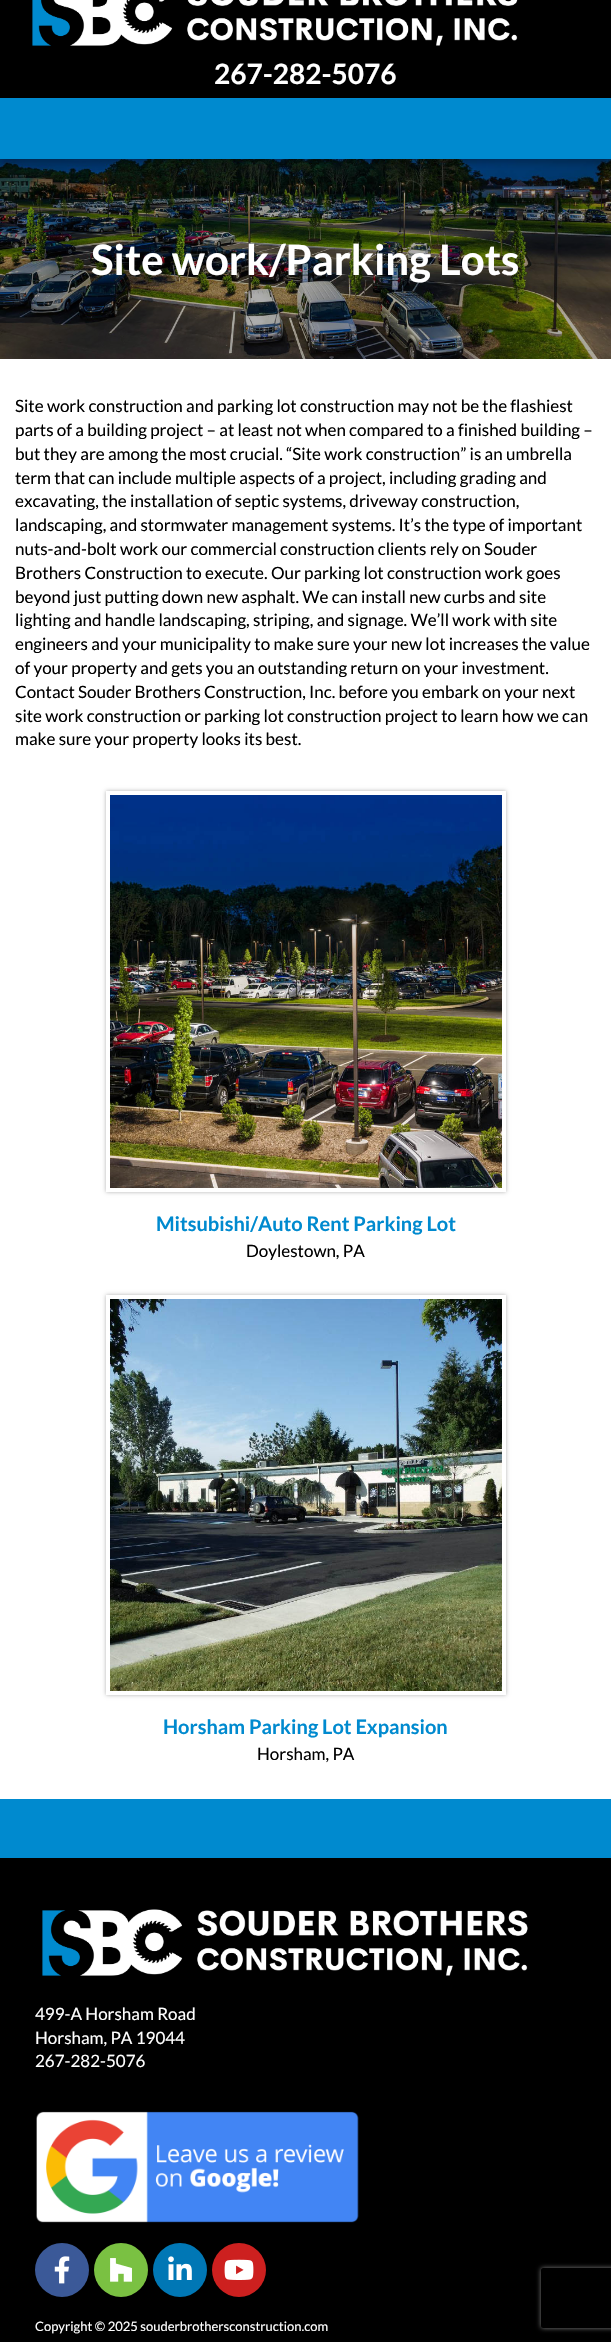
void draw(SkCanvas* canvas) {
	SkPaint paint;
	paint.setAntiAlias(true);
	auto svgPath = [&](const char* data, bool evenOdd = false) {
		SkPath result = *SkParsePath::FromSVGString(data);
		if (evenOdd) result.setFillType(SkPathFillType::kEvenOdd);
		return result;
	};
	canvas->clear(0xffffffff);
	paint.setColor(0xff000000);
	canvas->drawRect(SkRect::MakeXYWH(0, 0, 611, 98), paint);
	canvas->drawImageRect(SkImages::DeferredFromEncodedData(SkData::MakeFromFileName("img1.png")), SkRect::MakeXYWH(32, 0, 486, 46), SkSamplingOptions());
	SkFont f1(fontMgr->matchFamilyStyle("Lato", SkFontStyle::Bold()), 28);
	f1.setSubpixel(true);
	paint.setColor(0xffffffff);
	canvas->drawString("267-282-5076", 214, 84, f1, paint);
	canvas->drawImageRect(SkImages::DeferredFromEncodedData(SkData::MakeFromFileName("img2.png")), SkRect::MakeXYWH(0, 159, 611, 200), SkSamplingOptions());
	paint.setColor(0x4d000000);
	paint.setMaskFilter(SkMaskFilter::MakeBlur(kNormal_SkBlurStyle, 4));
	canvas->drawRect(SkRect::MakeXYWH(0, 102, 611, 61), paint);
	paint.setMaskFilter(nullptr);
	paint.setColor(0xff008acf);
	canvas->drawRect(SkRect::MakeXYWH(0, 98, 611, 61), paint);
	SkFont f2(fontMgr->matchFamilyStyle("Lato", SkFontStyle::Bold()), 42);
	f2.setSubpixel(true);
	paint.setColor(0xffffffff);
	canvas->drawString("Site work/Parking Lots", 91, 275, f2, paint);
	SkFont f3(fontMgr->matchFamilyStyle("Lato", SkFontStyle::Normal()), 17);
	f3.setSubpixel(true);
	paint.setColor(0xff000000);
	canvas->drawString("Site work construction and parking lot construction may not be the flashiest", 15, 412, f3, paint);
	canvas->drawString("parts of a building project – at least not when compared to a finished building –", 15, 436, f3, paint);
	canvas->drawString("but they are among the most crucial. “Site work construction” is an umbrella", 15, 460, f3, paint);
	canvas->drawString("term that can include multiple aspects of a project, including grading and", 15, 484, f3, paint);
	canvas->drawString("excavating, the installation of septic systems, driveway construction,", 15, 507, f3, paint);
	canvas->drawString("landscaping, and stormwater management systems. It’s the type of important", 15, 531, f3, paint);
	canvas->drawString("nuts-and-bolt work our commercial construction clients rely on Souder", 15, 555, f3, paint);
	canvas->drawString("Brothers Construction to execute. Our parking lot construction work goes", 15, 579, f3, paint);
	canvas->drawString("beyond just putting down new asphalt. We can install new curbs and site", 15, 603, f3, paint);
	canvas->drawString("lighting and handle landscaping, striping, and signage. We’ll work with site", 15, 626, f3, paint);
	canvas->drawString("engineers and your municipality to make sure your new lot increases the value", 15, 650, f3, paint);
	canvas->drawString("of your property and gets you an outstanding return on your investment.", 15, 674, f3, paint);
	canvas->drawString("Contact Souder Brothers Construction, Inc. before you embark on your next", 15, 698, f3, paint);
	canvas->drawString("site work construction or parking lot construction project to learn how we can", 15, 722, f3, paint);
	canvas->drawString("make sure your property looks its best.", 15, 745, f3, paint);
	canvas->save();
	canvas->clipPath(svgPath("M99 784H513V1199H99ZM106 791H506V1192H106Z", true), true);
	paint.setColor(0x4d000000);
	paint.setMaskFilter(SkMaskFilter::MakeBlur(kNormal_SkBlurStyle, 2));
	canvas->drawRect(SkRect::MakeXYWH(106, 791, 400, 401), paint);
	paint.setMaskFilter(nullptr);
	canvas->restore();
	canvas->drawImageRect(SkImages::DeferredFromEncodedData(SkData::MakeFromFileName("img3.png")), SkRect::MakeXYWH(110, 795, 392, 393), SkSamplingOptions());
	SkFont f4(fontMgr->matchFamilyStyle("Lato", SkFontStyle::Bold()), 20);
	f4.setSubpixel(true);
	paint.setColor(0xff008acf);
	canvas->drawString("Mitsubishi/Auto Rent Parking Lot", 156, 1231, f4, paint);
	paint.setColor(0xff000000);
	canvas->drawString("Doylestown, PA", 246, 1257, f3, paint);
	canvas->save();
	canvas->clipPath(svgPath("M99 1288H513V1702H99ZM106 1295H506V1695H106Z", true), true);
	paint.setColor(0x4d000000);
	paint.setMaskFilter(SkMaskFilter::MakeBlur(kNormal_SkBlurStyle, 2));
	canvas->drawRect(SkRect::MakeXYWH(106, 1295, 400, 400), paint);
	paint.setMaskFilter(nullptr);
	canvas->restore();
	canvas->drawImageRect(SkImages::DeferredFromEncodedData(SkData::MakeFromFileName("img4.png")), SkRect::MakeXYWH(110, 1299, 392, 392), SkSamplingOptions());
	paint.setColor(0xff008acf);
	canvas->drawString("Horsham Parking Lot Expansion", 163, 1734, f4, paint);
	paint.setColor(0xff000000);
	canvas->drawString("Horsham, PA", 257, 1760, f3, paint);
	paint.setColor(0xff008acf);
	canvas->drawRect(SkRect::MakeXYWH(0, 1799, 611, 59), paint);
	paint.setColor(0xff000000);
	canvas->drawRect(SkRect::MakeXYWH(0, 1858, 611, 484), paint);
	canvas->drawImageRect(SkImages::DeferredFromEncodedData(SkData::MakeFromFileName("img5.png")), SkRect::MakeXYWH(42, 1909, 486, 67), SkSamplingOptions());
	paint.setColor(0xffffffff);
	canvas->drawString("499-A Horsham Road", 35, 2020, f3, paint);
	canvas->drawString("Horsham, PA 19044", 35, 2044, f3, paint);
	canvas->drawString("267-282-5076", 35, 2067, f3, paint);
	canvas->drawImageRect(SkImages::DeferredFromEncodedData(SkData::MakeFromFileName("img6.png")), SkRect::MakeXYWH(36, 2111, 323, 112), SkSamplingOptions());
	paint.setColor(0xff3b5998);
	canvas->drawCircle(62, 2270, 27, paint);
	canvas->drawImageRect(SkImages::DeferredFromEncodedData(SkData::MakeFromFileName("img7.png")), SkRect::MakeXYWH(54, 2256, 16, 28), SkSamplingOptions());
	paint.setColor(0xff7ac142);
	canvas->drawCircle(121, 2270, 27, paint);
	canvas->drawImageRect(SkImages::DeferredFromEncodedData(SkData::MakeFromFileName("img8.png")), SkRect::MakeXYWH(110, 2258, 22, 24), SkSamplingOptions());
	paint.setColor(0xff0077b5);
	canvas->drawCircle(180, 2270, 27, paint);
	canvas->drawImageRect(SkImages::DeferredFromEncodedData(SkData::MakeFromFileName("img9.png")), SkRect::MakeXYWH(168, 2256, 24, 24), SkSamplingOptions());
	paint.setColor(0xffcd201f);
	canvas->drawCircle(239, 2270, 27, paint);
	canvas->drawImageRect(SkImages::DeferredFromEncodedData(SkData::MakeFromFileName("img10.png")), SkRect::MakeXYWH(224, 2259, 30, 21), SkSamplingOptions());
	SkFont f5(fontMgr->matchFamilyStyle("Lato", SkFontStyle::Normal()), 13);
	f5.setSubpixel(true);
	paint.setColor(0xffffffff);
	canvas->drawString("Copyright © 2025 souderbrothersconstruction.com", 35, 2331, f5, paint);
	canvas->save();
	canvas->clipPath(svgPath("M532 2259H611V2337H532ZM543 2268H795C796 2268 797 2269 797 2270V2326C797 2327 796 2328 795 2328H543C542 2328 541 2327 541 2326V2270C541 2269 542 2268 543 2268Z", true), true);
	paint.setColor(0xff808080);
	paint.setMaskFilter(SkMaskFilter::MakeBlur(kNormal_SkBlurStyle, 2.5));
	canvas->drawRoundRect(SkRect::MakeXYWH(541, 2268, 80, 60), 2, 2, paint);
	paint.setMaskFilter(nullptr);
	canvas->restore();
}
